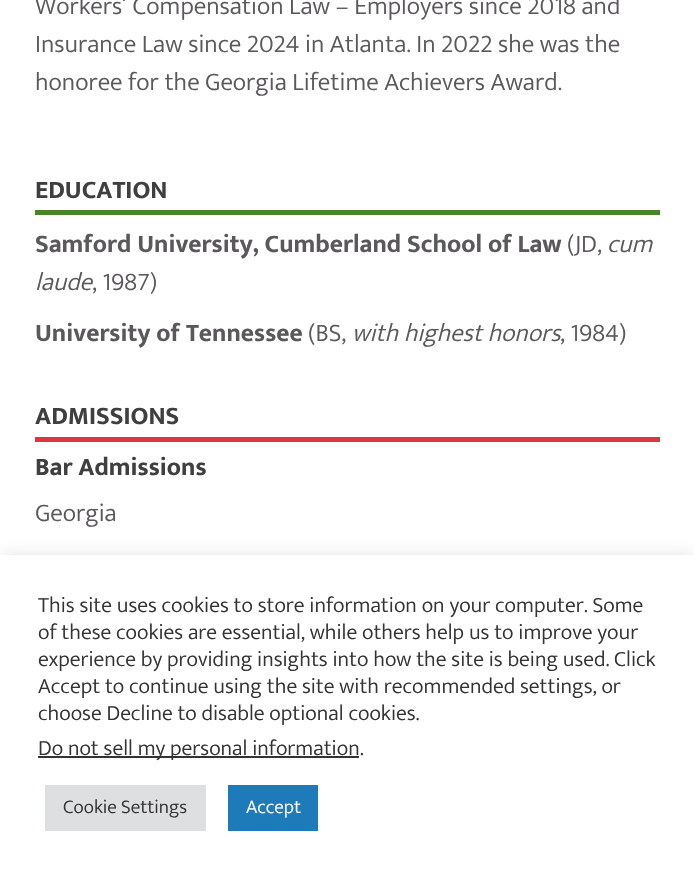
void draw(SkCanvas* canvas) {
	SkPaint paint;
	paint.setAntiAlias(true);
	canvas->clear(0xffffffff);
	SkFont f1(fontMgr->matchFamilyStyle("Mukta", SkFontStyle(300, SkFontStyle::kNormal_Width, SkFontStyle::kUpright_Slant)), 25.5);
	f1.setSubpixel(true);
	paint.setColor(0xff5b585b);
	canvas->drawString("Workers’ Compensation Law – Employers since 2018 and", 35, 14, f1, paint);
	canvas->drawString("Insurance Law since 2024 in Atlanta. In 2022 she was the", 35, 52, f1, paint);
	canvas->drawString("honoree for the Georgia Lifetime Achievers Award.", 35, 90, f1, paint);
	paint.setColor(0xff4b8325);
	canvas->drawRect(SkRect::MakeXYWH(35, 210, 625, 5), paint);
	SkFont f2(fontMgr->matchFamilyStyle("Mukta", SkFontStyle::Bold()), 25.5);
	f2.setSubpixel(true);
	paint.setColor(0xff3f3f3f);
	canvas->drawString("EDUCATION", 35, 198, f2, paint);
	paint.setColor(0xff5b585b);
	canvas->drawString("Samford University, Cumberland School of Law", 35, 252, f2, paint);
	canvas->drawString("(JD,", 567, 252, f1, paint);
	SkFont f3(fontMgr->matchFamilyStyle("Mukta", SkFontStyle(300, SkFontStyle::kNormal_Width, SkFontStyle::kItalic_Slant)), 25.5);
	f3.setSubpixel(true);
	canvas->drawString("cum", 607, 252, f3, paint);
	canvas->drawString("laude", 35, 290, f3, paint);
	canvas->drawString(", 1987)", 92, 290, f1, paint);
	canvas->drawString("University of Tennessee", 35, 341, f2, paint);
	canvas->drawString("(BS,", 308, 341, f1, paint);
	canvas->drawString("with highest honors", 352, 341, f3, paint);
	canvas->drawString(", 1984)", 560, 341, f1, paint);
	paint.setColor(0xffda3743);
	canvas->drawRect(SkRect::MakeXYWH(35, 437, 625, 5), paint);
	paint.setColor(0xff3f3f3f);
	canvas->drawString("ADMISSIONS", 35, 424, f2, paint);
	canvas->drawString("Bar Admissions", 35, 475, f2, paint);
	paint.setColor(0xff5b585b);
	canvas->drawString("Georgia", 35, 521, f1, paint);
	paint.setColor(0x4dacabab);
	paint.setMaskFilter(SkMaskFilter::MakeBlur(kNormal_SkBlurStyle, 7.5));
	canvas->drawRect(SkRect::MakeXYWH(0, 554, 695, 321), paint);
	paint.setMaskFilter(nullptr);
	paint.setColor(0xffffffff);
	canvas->drawRect(SkRect::MakeXYWH(0, 555, 694, 320), paint);
	SkFont f4(fontMgr->matchFamilyStyle("Mukta", SkFontStyle(300, SkFontStyle::kNormal_Width, SkFontStyle::kUpright_Slant)), 22);
	f4.setSubpixel(true);
	paint.setColor(0xff333333);
	canvas->drawString("This site uses cookies to store information on your computer. Some", 38, 612, f4, paint);
	canvas->drawString("of these cookies are essential, while others help us to improve your", 38, 639, f4, paint);
	canvas->drawString("experience by providing insights into how the site is being used. Click", 38, 666, f4, paint);
	canvas->drawString("Accept to continue using the site with recommended settings, or", 38, 693, f4, paint);
	canvas->drawString("choose Decline to disable optional cookies.", 38, 720, f4, paint);
	canvas->drawRect(SkRect::MakeXYWH(38, 756, 321, 2), paint);
	canvas->drawString("Do not sell my personal information.", 38, 755, f4, paint);
	paint.setColor(0xffdedfe0);
	canvas->drawRect(SkRect::MakeXYWH(45, 785, 161, 46), paint);
	SkFont f5(fontMgr->matchFamilyStyle("Mukta", SkFontStyle(300, SkFontStyle::kNormal_Width, SkFontStyle::kUpright_Slant)), 19.5);
	f5.setSubpixel(true);
	paint.setColor(0xff333333);
	canvas->drawString("Cookie Settings", 63, 813, f5, paint);
	paint.setColor(0xff1d7bb9);
	canvas->drawRect(SkRect::MakeXYWH(228, 785, 90, 46), paint);
	paint.setColor(0xffffffff);
	canvas->drawString("Accept", 246, 813, f5, paint);
}
